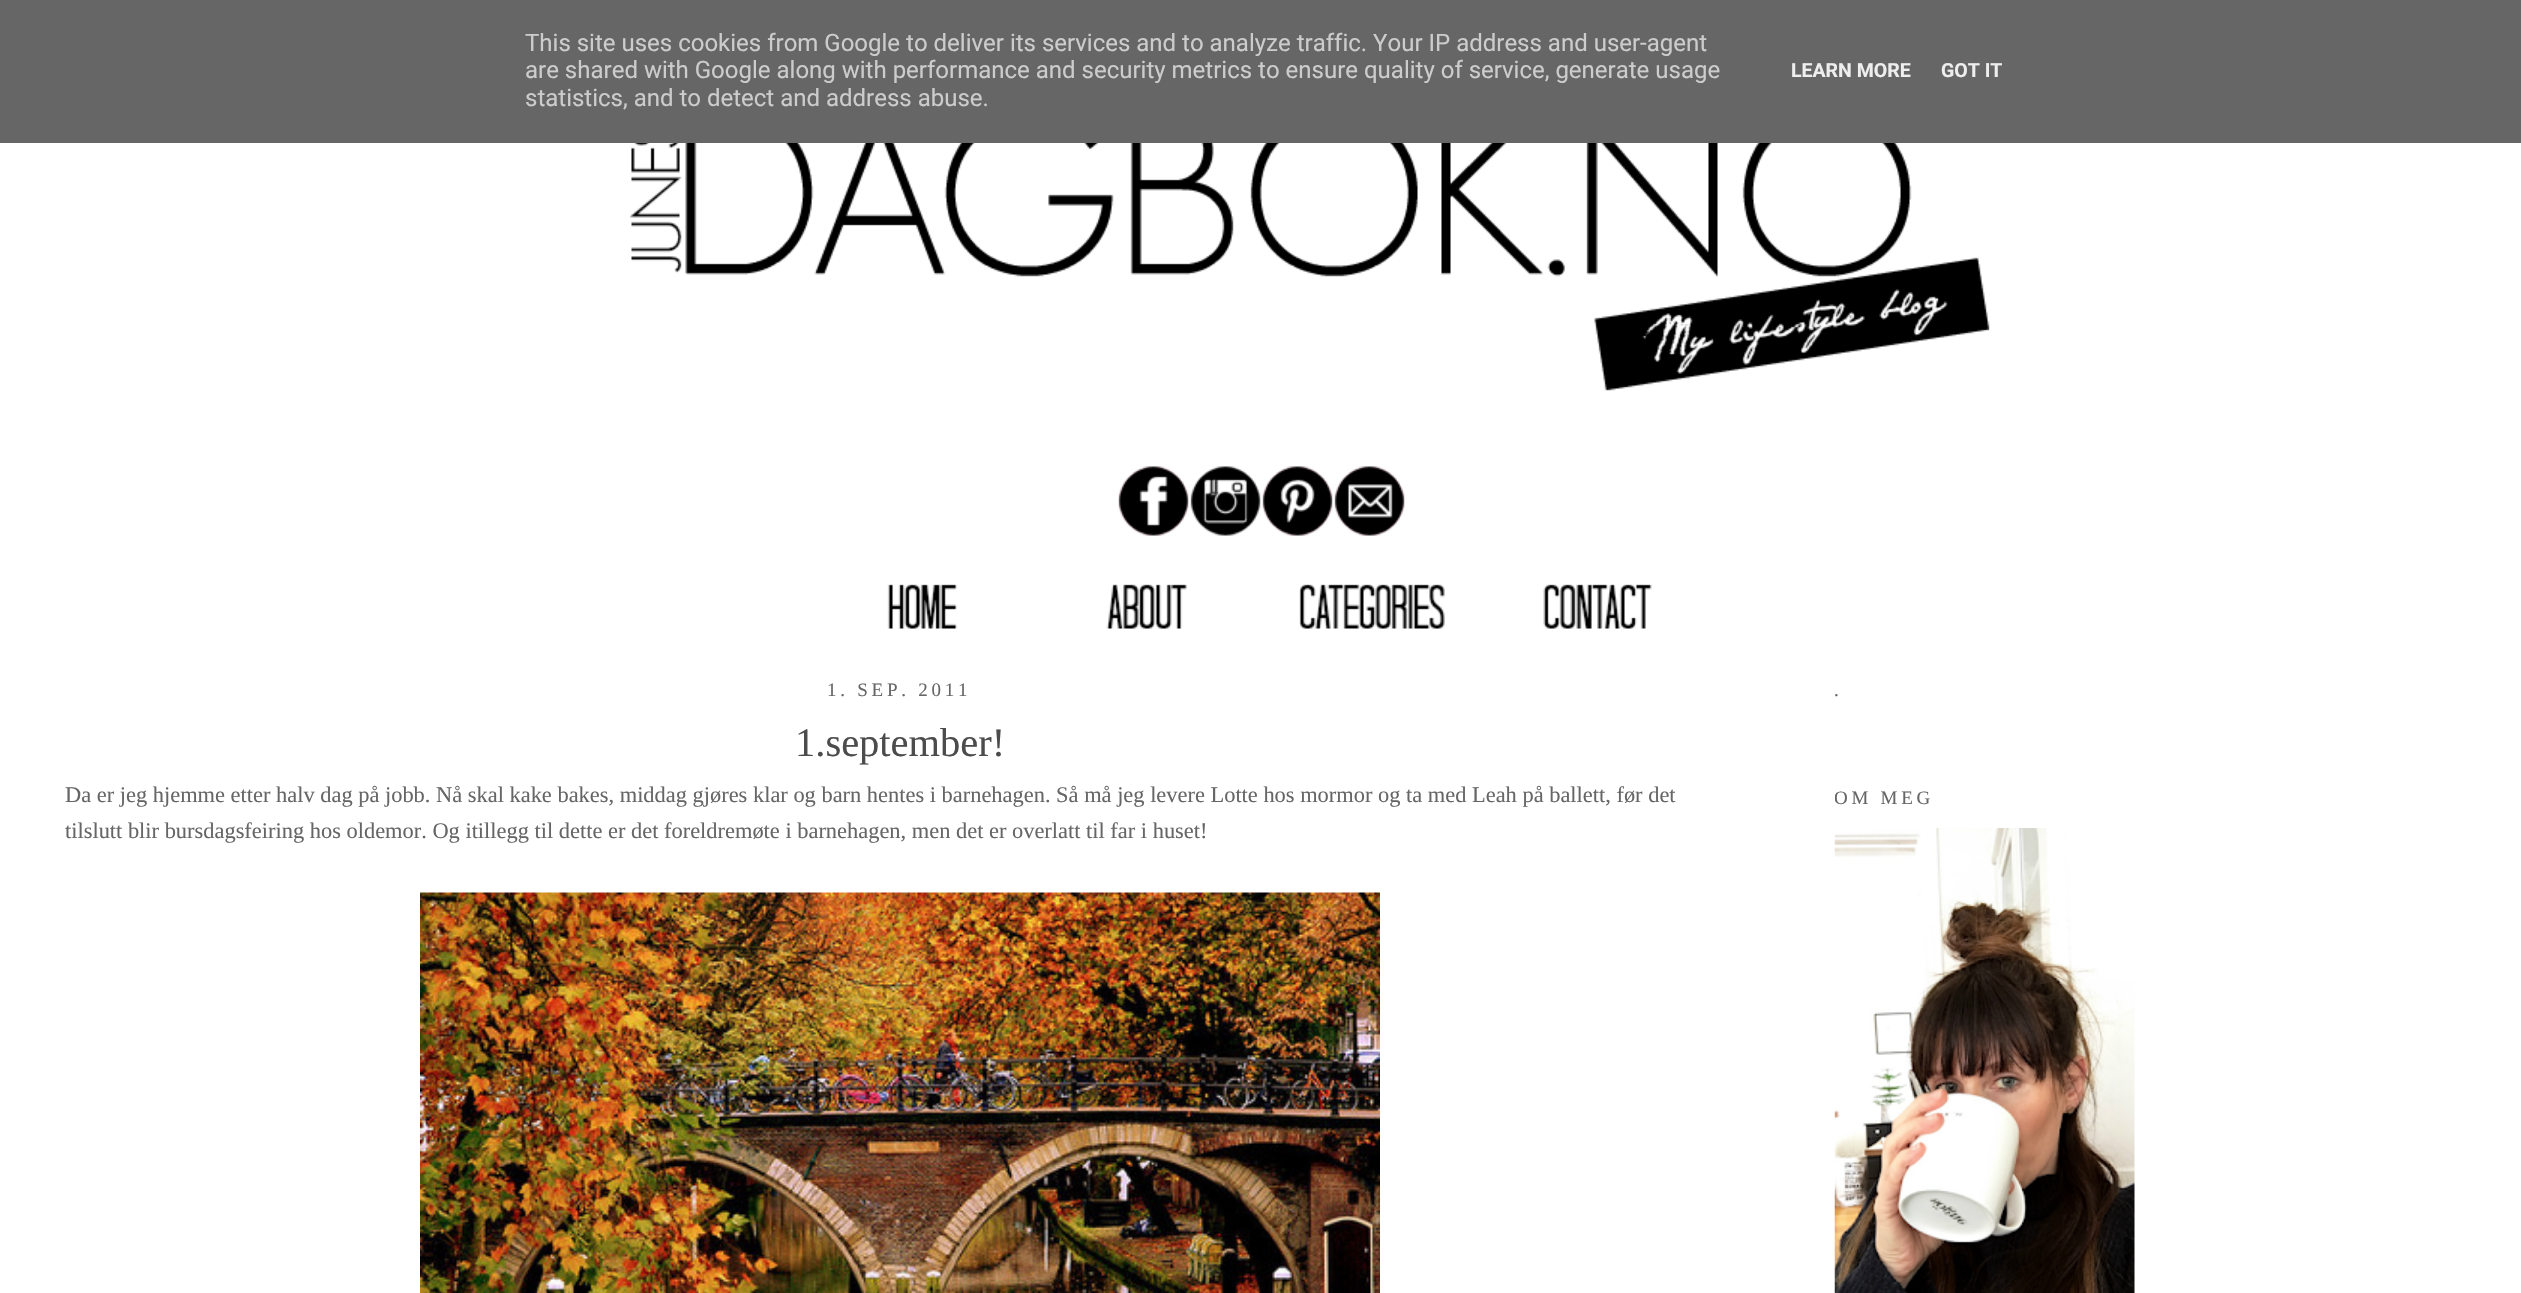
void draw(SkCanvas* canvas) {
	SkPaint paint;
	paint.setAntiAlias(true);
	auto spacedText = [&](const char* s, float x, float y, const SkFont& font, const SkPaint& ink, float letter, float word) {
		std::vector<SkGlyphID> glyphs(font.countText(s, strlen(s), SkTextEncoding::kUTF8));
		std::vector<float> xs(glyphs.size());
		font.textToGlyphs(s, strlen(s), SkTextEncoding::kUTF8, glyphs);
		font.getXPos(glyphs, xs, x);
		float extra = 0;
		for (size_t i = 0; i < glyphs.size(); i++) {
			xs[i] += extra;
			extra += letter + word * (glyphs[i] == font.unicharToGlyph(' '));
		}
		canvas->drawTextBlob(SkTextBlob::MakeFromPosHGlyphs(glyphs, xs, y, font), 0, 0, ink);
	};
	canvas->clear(0xffffffff);
	paint.setColor(0xff666666);
	canvas->drawRect(SkRect::MakeXYWH(0, 0, 2521, 143), paint);
	SkFont f1(fontMgr->matchFamilyStyle("Roboto", SkFontStyle::Normal()), 24);
	f1.setSubpixel(true);
	paint.setColor(0xffcccccc);
	canvas->drawString("This site uses cookies from Google to deliver its services and to analyze traffic. Your IP address and user-agent", 525, 51, f1, paint);
	canvas->drawString("are shared with Google along with performance and security metrics to ensure quality of service, generate usage", 525, 78, f1, paint);
	canvas->drawString("statistics, and to detect and address abuse.", 525, 106, f1, paint);
	SkFont f2(fontMgr->matchFamilyStyle("Roboto", SkFontStyle::Bold()), 19.5);
	f2.setSubpixel(true);
	paint.setColor(0xffeeeeee);
	canvas->drawString("LEARN MORE", 1791, 77, f2, paint);
	canvas->drawString("GOT IT", 1941, 77, f2, paint);
	canvas->drawImageRect(SkImages::DeferredFromEncodedData(SkData::MakeFromFileName("img1.png")), SkRect::MakeXYWH(629, 143, 1361, 248), SkSamplingOptions());
	canvas->drawImageRect(SkImages::DeferredFromEncodedData(SkData::MakeFromFileName("img2.png")), SkRect::MakeXYWH(1118, 466, 71, 70), SkSamplingOptions());
	canvas->drawImageRect(SkImages::DeferredFromEncodedData(SkData::MakeFromFileName("img3.png")), SkRect::MakeXYWH(1190, 466, 71, 70), SkSamplingOptions());
	canvas->drawImageRect(SkImages::DeferredFromEncodedData(SkData::MakeFromFileName("img4.png")), SkRect::MakeXYWH(1262, 466, 71, 70), SkSamplingOptions());
	canvas->drawImageRect(SkImages::DeferredFromEncodedData(SkData::MakeFromFileName("img5.png")), SkRect::MakeXYWH(1334, 466, 71, 70), SkSamplingOptions());
	canvas->drawImageRect(SkImages::DeferredFromEncodedData(SkData::MakeFromFileName("img6.png")), SkRect::MakeXYWH(887, 584, 71, 45), SkSamplingOptions());
	canvas->drawImageRect(SkImages::DeferredFromEncodedData(SkData::MakeFromFileName("img7.png")), SkRect::MakeXYWH(1106, 584, 81, 45), SkSamplingOptions());
	canvas->drawImageRect(SkImages::DeferredFromEncodedData(SkData::MakeFromFileName("img8.png")), SkRect::MakeXYWH(1299, 584, 146, 45), SkSamplingOptions());
	canvas->drawImageRect(SkImages::DeferredFromEncodedData(SkData::MakeFromFileName("img9.png")), SkRect::MakeXYWH(1543, 584, 109, 45), SkSamplingOptions());
	SkFont f3(fontMgr->matchFamilyStyle("Liberation Serif", SkFontStyle::Normal()), 19);
	f3.setSubpixel(true);
	paint.setColor(0xff666666);
	spacedText("1. SEP. 2011", 827, 696, f3, paint, 3.75, 0);
	SkFont f4(fontMgr->matchFamilyStyle("Liberation Serif", SkFontStyle::Normal()), 40.5);
	f4.setSubpixel(true);
	paint.setColor(0xff4c4c4c);
	canvas->drawString("1.september!", 795, 756, f4, paint);
	SkFont f5(fontMgr->matchFamilyStyle("Liberation Serif", SkFontStyle::Normal()), 22.42);
	f5.setSubpixel(true);
	paint.setColor(0xff666666);
	canvas->drawString("Da er jeg hjemme etter halv dag på jobb. Nå skal kake bakes, middag gjøres klar og barn hentes i barnehagen. Så må jeg levere Lotte hos mormor og ta med Leah på ballett, før det", 65, 802, f5, paint);
	canvas->drawString("tilslutt blir bursdagsfeiring hos oldemor. Og itillegg til dette er det foreldremøte i barnehagen, men det er overlatt til far i huset!", 65, 838, f5, paint);
	canvas->drawImageRect(SkImages::DeferredFromEncodedData(SkData::MakeFromFileName("img10.png")), SkRect::MakeXYWH(420, 892, 960, 401), SkSamplingOptions());
	spacedText(".", 1834, 696, f3, paint, 3.75, 0);
	canvas->save();
	canvas->clipRect(SkRect::MakeXYWH(1835, 650, 622, 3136));
	spacedText("OM MEG", 1834, 804, f3, paint, 3.75, 0);
	canvas->restore();
	canvas->drawImageRect(SkImages::DeferredFromEncodedData(SkData::MakeFromFileName("img11.png")), SkRect::MakeXYWH(1834, 828, 301, 465), SkSamplingOptions());
}
